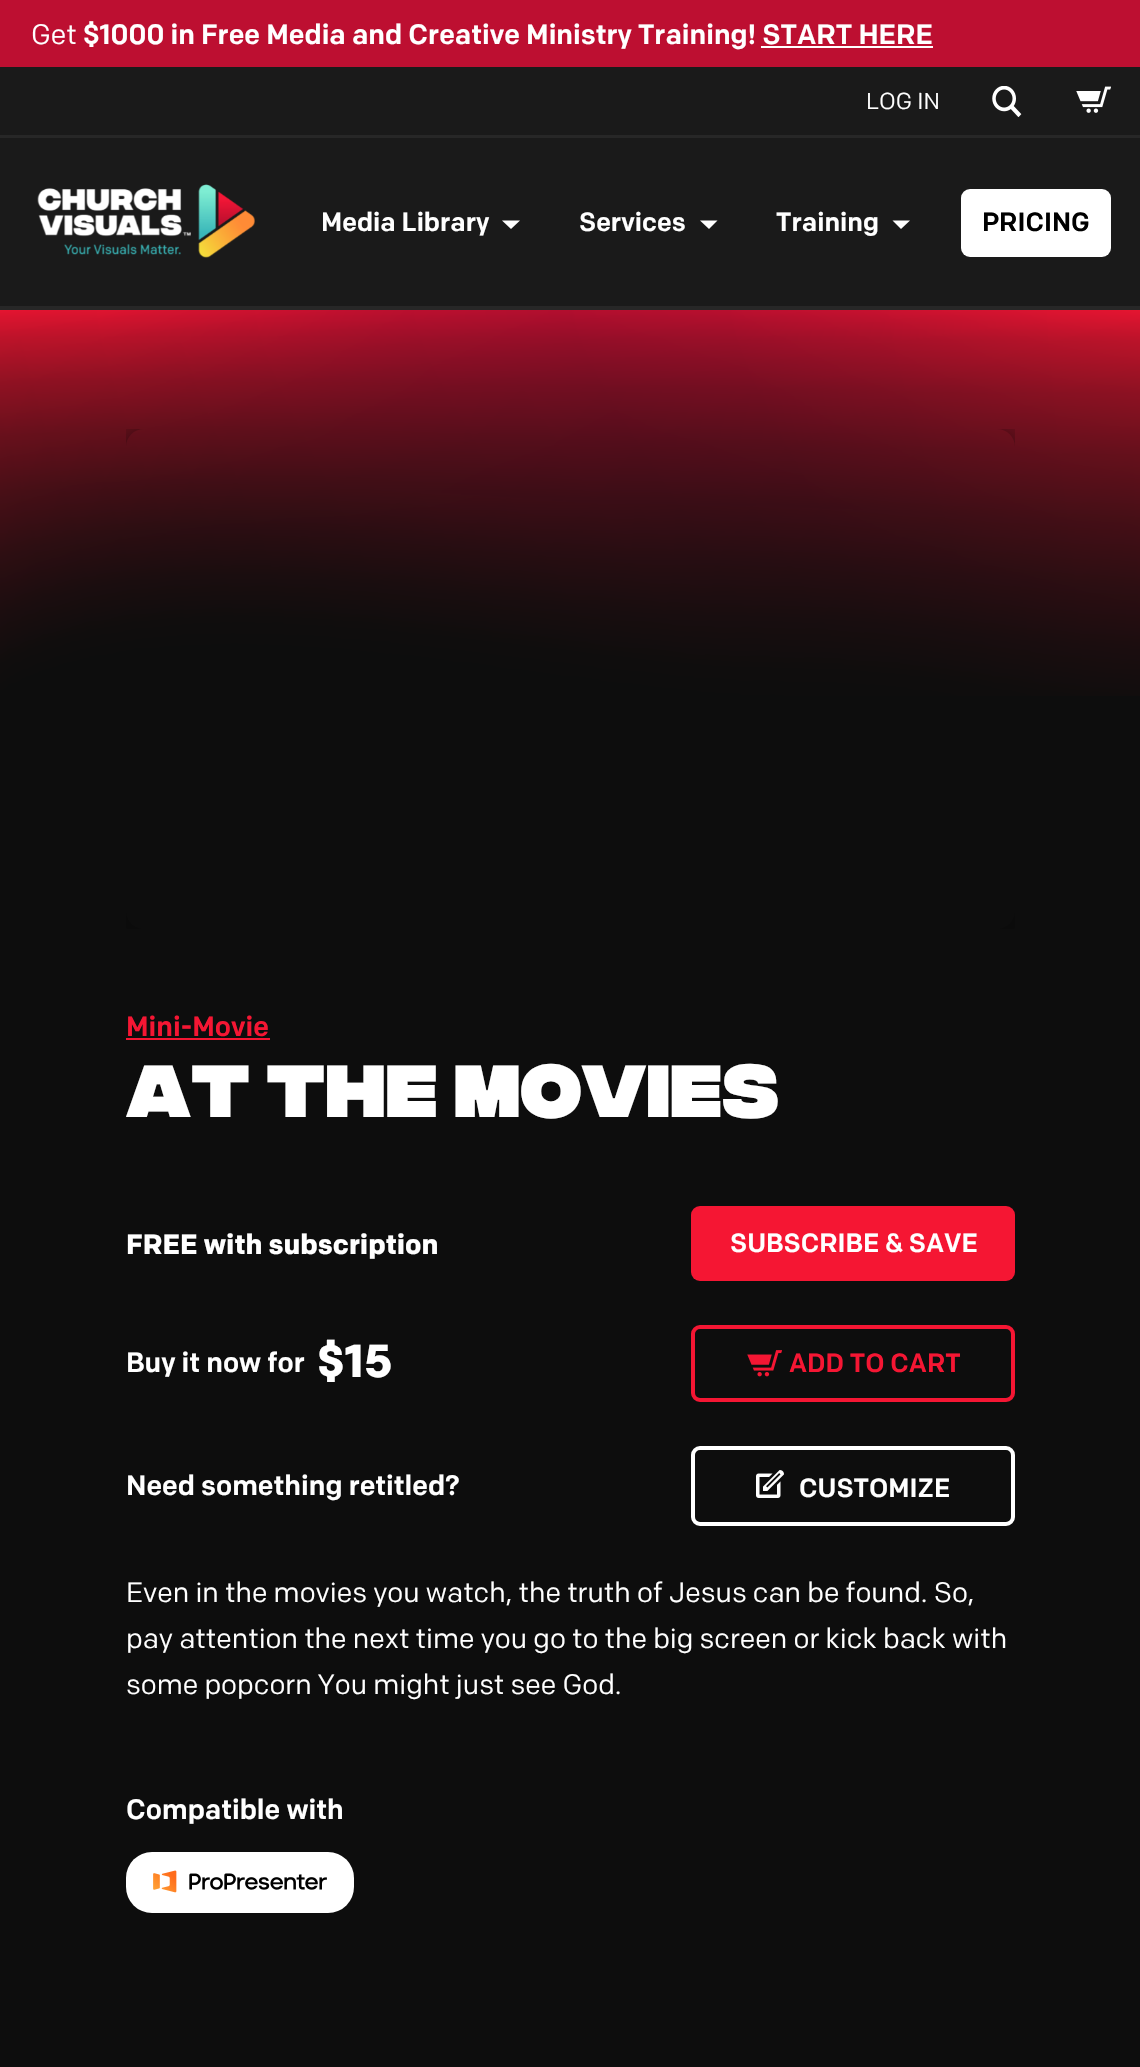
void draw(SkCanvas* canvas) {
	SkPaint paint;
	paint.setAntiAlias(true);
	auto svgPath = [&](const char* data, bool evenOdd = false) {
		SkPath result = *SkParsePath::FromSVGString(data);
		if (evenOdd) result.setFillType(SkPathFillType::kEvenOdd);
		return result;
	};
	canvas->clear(0xff0d0d0d);
	paint.setColor(0xffbd0f31);
	canvas->drawRect(SkRect::MakeXYWH(0, 0, 1140, 67), paint);
	SkFont f1(fontMgr->matchFamilyStyle("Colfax", SkFontStyle::Normal()), 28);
	f1.setSubpixel(true);
	paint.setColor(0xffffffff);
	canvas->drawString("Get", 31, 44, f1, paint);
	SkFont f2(fontMgr->matchFamilyStyle("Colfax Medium", SkFontStyle(500, SkFontStyle::kNormal_Width, SkFontStyle::kUpright_Slant)), 28);
	f2.setSubpixel(true);
	canvas->drawString("$1000 in Free Media and Creative Ministry Training! START HERE", 83, 44, f2, paint);
	canvas->drawRect(SkRect::MakeXYWH(761, 46, 172, 2), paint);
	paint.setColor(0xff1a1a1a);
	canvas->drawRect(SkRect::MakeXYWH(0, 67, 1140, 68), paint);
	paint.setColor(0xff272727);
	canvas->drawRect(SkRect::MakeXYWH(0, 135, 1140, 3), paint);
	SkFont f3(fontMgr->matchFamilyStyle("Colfax", SkFontStyle::Normal()), 23);
	f3.setSubpixel(true);
	paint.setColor(0xffffffff);
	canvas->drawString("LOG IN", 866, 109, f3, paint);
	canvas->drawImageRect(SkImages::DeferredFromEncodedData(SkData::MakeFromFileName("img1.png")), SkRect::MakeXYWH(992, 86, 30, 31), SkSamplingOptions());
	canvas->drawImageRect(SkImages::DeferredFromEncodedData(SkData::MakeFromFileName("img2.png")), SkRect::MakeXYWH(1076, 86, 35, 27), SkSamplingOptions());
	paint.setColor(0xff1a1a1a);
	canvas->drawRect(SkRect::MakeXYWH(0, 138, 1140, 168), paint);
	paint.setColor(0xff272727);
	canvas->drawRect(SkRect::MakeXYWH(0, 306, 1140, 4), paint);
	canvas->drawImageRect(SkImages::DeferredFromEncodedData(SkData::MakeFromFileName("img3.png")), SkRect::MakeXYWH(37, 184, 218, 74), SkSamplingOptions());
	SkFont f4(fontMgr->matchFamilyStyle("Colfax Medium", SkFontStyle(500, SkFontStyle::kNormal_Width, SkFontStyle::kUpright_Slant)), 26.25);
	f4.setSubpixel(true);
	paint.setColor(0xffffffff);
	canvas->drawString("Media Library", 321, 231, f4, paint);
	canvas->drawPath(svgPath("M502 220.5H520L511 229Z"), paint);
	canvas->drawString("Services", 579, 231, f4, paint);
	canvas->drawPath(svgPath("M700 220.5H717.5L709 229Z"), paint);
	canvas->drawString("Training", 776, 231, f4, paint);
	canvas->drawPath(svgPath("M892.5 220.5H910L901 229Z"), paint);
	canvas->drawRoundRect(SkRect::MakeXYWH(961, 189, 150, 68), 9, 9, paint);
	paint.setColor(0xff000000);
	canvas->drawString("PRICING", 982, 231, f4, paint);
	canvas->drawImageRect(SkImages::DeferredFromEncodedData(SkData::MakeFromFileName("img4.png")), SkRect::MakeXYWH(0, 310, 1140, 386), SkSamplingOptions());
	canvas->save();
	canvas->clipRect(SkRect::MakeXYWH(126, 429, 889, 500));
	canvas->clipPath(svgPath("M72 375H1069V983H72ZM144 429H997C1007 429 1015 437 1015 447V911C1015 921 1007 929 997 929H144C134 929 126 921 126 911V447C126 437 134 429 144 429Z", true), true);
	paint.setColor(0x80000000);
	paint.setMaskFilter(SkMaskFilter::MakeBlur(kNormal_SkBlurStyle, 17.5));
	canvas->drawRoundRect(SkRect::MakeXYWH(126, 429, 889, 500), 18, 18, paint);
	paint.setMaskFilter(nullptr);
	canvas->restore();
	paint.setColor(0xfff51633);
	canvas->drawString("Mini-Movie", 126, 1036, f2, paint);
	canvas->drawRect(SkRect::MakeXYWH(126, 1038, 144, 2), paint);
	SkFont f5(fontMgr->matchFamilyStyle("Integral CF", SkFontStyle(900, SkFontStyle::kNormal_Width, SkFontStyle::kUpright_Slant)), 73.5);
	f5.setSubpixel(true);
	paint.setColor(0xffffffff);
	canvas->drawString("At The Movies", 126, 1117, f5, paint);
	SkFont f6(fontMgr->matchFamilyStyle("Colfax", SkFontStyle::Bold()), 28);
	f6.setSubpixel(true);
	canvas->drawString("FREE with subscription", 126, 1254, f6, paint);
	paint.setColor(0xfff51633);
	canvas->drawRoundRect(SkRect::MakeXYWH(691, 1206, 324, 75), 9, 9, paint);
	paint.setColor(0xffffffff);
	canvas->drawString("SUBSCRIBE & SAVE", 730, 1252, f4, paint);
	canvas->drawString("Buy it now for", 126, 1372, f2, paint);
	SkFont f7(fontMgr->matchFamilyStyle("Colfax", SkFontStyle::Bold()), 46);
	f7.setSubpixel(true);
	canvas->drawString("$15", 317, 1377, f7, paint);
	paint.setStroke(true);
	paint.setStrokeWidth(4);
	paint.setColor(0xfff51633);
	canvas->drawRoundRect(SkRect::MakeXYWH(693, 1327, 320, 73), 7, 7, paint);
	canvas->drawImageRect(SkImages::DeferredFromEncodedData(SkData::MakeFromFileName("img5.png")), SkRect::MakeXYWH(747, 1350, 35, 27), SkSamplingOptions());
	paint.setStroke(false);
	canvas->drawString("ADD TO CART", 789, 1372, f4, paint);
	paint.setColor(0xffffffff);
	canvas->drawString("Need something retitled?", 126, 1495, f2, paint);
	paint.setStroke(true);
	canvas->drawRoundRect(SkRect::MakeXYWH(693, 1448, 320, 76), 7, 7, paint);
	canvas->drawImageRect(SkImages::DeferredFromEncodedData(SkData::MakeFromFileName("img6.png")), SkRect::MakeXYWH(756, 1470, 28, 28), SkSamplingOptions());
	paint.setStroke(false);
	canvas->drawString("CUSTOMIZE", 799, 1497, f4, paint);
	canvas->drawString("Even in the movies you watch, the truth of Jesus can be found. So,", 126, 1602, f1, paint);
	canvas->drawString("pay attention the next time you go to the big screen or kick back with", 126, 1648, f1, paint);
	canvas->drawString("some popcorn You might just see God.", 126, 1694, f1, paint);
	canvas->drawString("Compatible with", 126, 1819, f2, paint);
	canvas->drawRoundRect(SkRect::MakeXYWH(126, 1852, 228, 61), 26, 26, paint);
	canvas->drawImageRect(SkImages::DeferredFromEncodedData(SkData::MakeFromFileName("img7.png")), SkRect::MakeXYWH(153, 1870, 174, 23), SkSamplingOptions());
}
